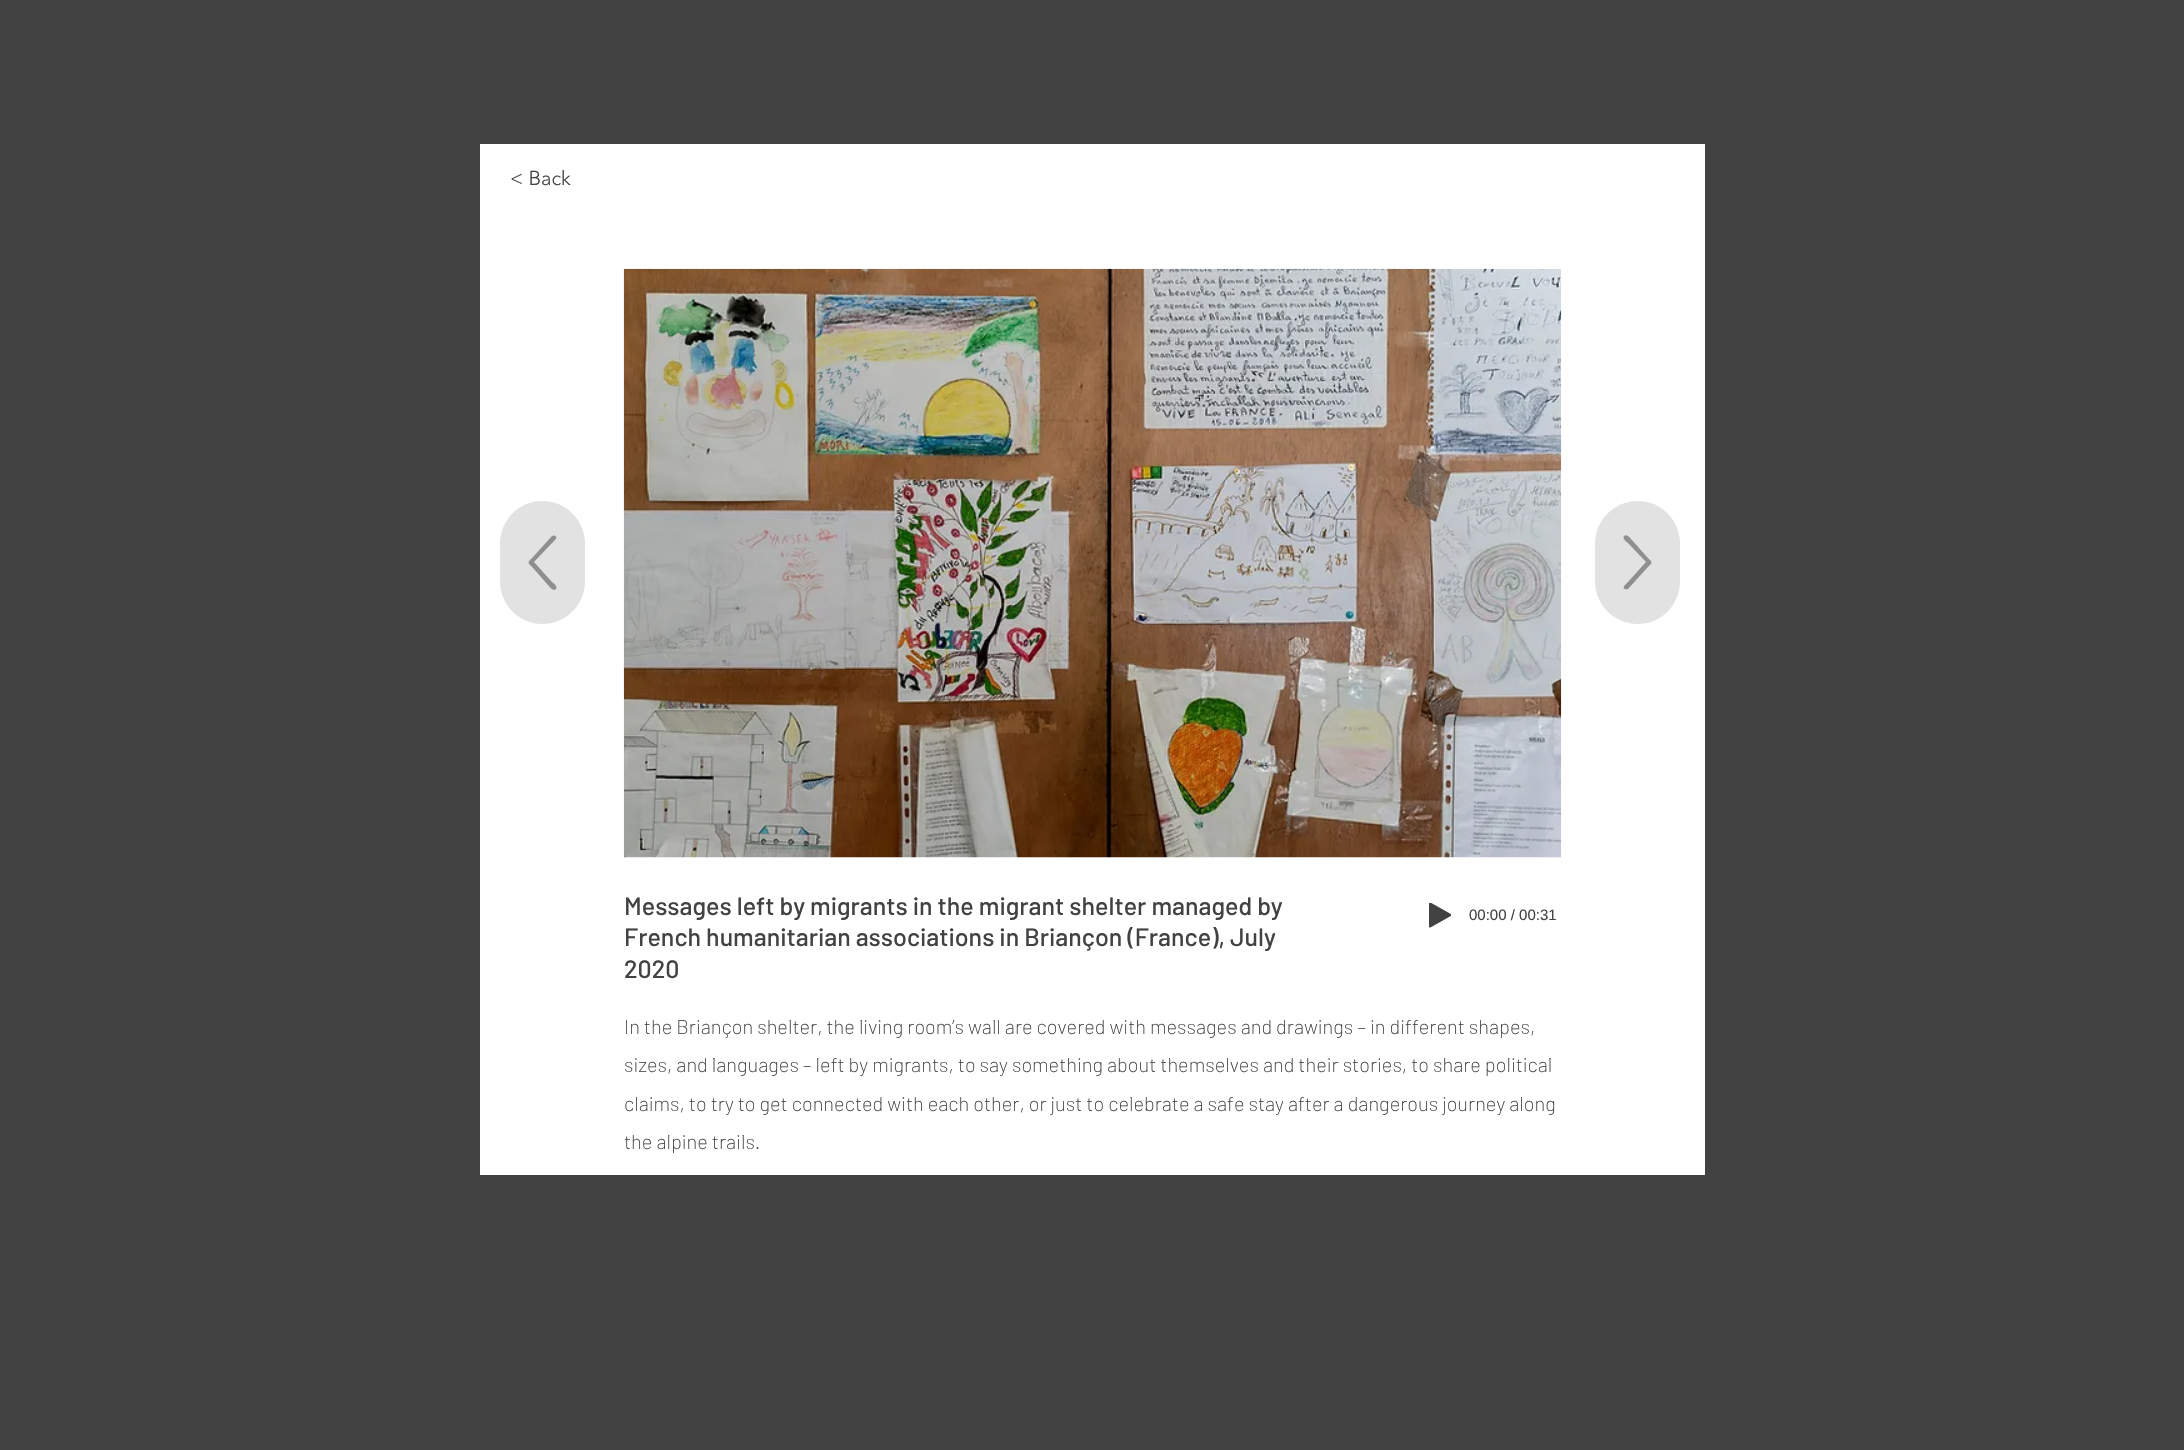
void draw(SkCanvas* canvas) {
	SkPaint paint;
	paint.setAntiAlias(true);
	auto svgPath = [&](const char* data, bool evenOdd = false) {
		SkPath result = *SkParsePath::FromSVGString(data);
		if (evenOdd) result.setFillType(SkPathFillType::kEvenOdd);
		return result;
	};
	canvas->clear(0xff424242);
	paint.setColor(0xffffffff);
	canvas->drawRect(SkRect::MakeXYWH(480, 144, 1225, 1031), paint);
	SkFont f1(fontMgr->matchFamilyStyle("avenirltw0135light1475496", SkFontStyle(300, SkFontStyle::kNormal_Width, SkFontStyle::kUpright_Slant)), 20);
	f1.setSubpixel(true);
	paint.setColor(0xff424242);
	canvas->drawString("< Back", 510, 185, f1, paint);
	paint.setColor(0xffe2e2e2);
	canvas->drawPath(svgPath("M500 581V544C500 520 519 501 542 501C566 501 585 520 585 544V581C585 605 566 624 542 624C519 624 500 605 500 581Z"), paint);
	paint.setColor(0xff8f8f8f);
	canvas->drawPath(svgPath("M552 536L533 557C527 563 527 562 533 568L548 585C549 586 553 592 556 589C558 586 553 583 552 582L534 562L552 543C553 542 559 537 555 536C554 535 553 536 552 536Z"), paint);
	canvas->drawImageRect(SkImages::DeferredFromEncodedData(SkData::MakeFromFileName("img1.png")), SkRect::MakeXYWH(623, 268, 939, 590), SkSamplingOptions());
	paint.setColor(0xffe2e2e2);
	canvas->drawPath(svgPath("M1680 544V581C1680 605 1661 624 1638 624C1614 624 1595 605 1595 581V544C1595 520 1614 501 1638 501C1661 501 1680 520 1680 544Z"), paint);
	paint.setColor(0xff8f8f8f);
	canvas->drawPath(svgPath("M1628 589L1647 568C1653 562 1653 563 1647 557L1632 540C1631 539 1627 533 1624 536C1622 539 1627 542 1628 543L1646 562L1628 582C1627 583 1621 588 1625 589C1626 590 1627 589 1628 589Z"), paint);
	SkFont f2(fontMgr->matchFamilyStyle("Barlow", SkFontStyle(500, SkFontStyle::kNormal_Width, SkFontStyle::kUpright_Slant)), 25);
	f2.setSubpixel(true);
	paint.setColor(0xff424242);
	canvas->drawString("Messages left by migrants in the migrant shelter managed by", 624, 915, f2, paint);
	canvas->drawString("French humanitarian associations in Briançon (France), July", 624, 946, f2, paint);
	canvas->drawString("2020", 624, 978, f2, paint);
	canvas->drawImageRect(SkImages::DeferredFromEncodedData(SkData::MakeFromFileName("img2.png")), SkRect::MakeXYWH(1429, 903, 22, 25), SkSamplingOptions());
	SkFont f3(fontMgr->matchFamilyStyle("Liberation Sans", SkFontStyle::Normal()), 15);
	f3.setSubpixel(true);
	canvas->drawString("00:00 / 00:31", 1469, 920, f3, paint);
	SkFont f4(fontMgr->matchFamilyStyle("Barlow", SkFontStyle(200, SkFontStyle::kNormal_Width, SkFontStyle::kUpright_Slant)), 20);
	f4.setSubpixel(true);
	canvas->drawString("In the Briançon shelter, the living room’s wall are covered with messages and drawings – in different shapes,", 624, 1034, f4, paint);
	canvas->drawString("sizes, and languages – left by migrants, to say something about themselves and their stories, to share political", 624, 1072, f4, paint);
	canvas->drawString("claims, to try to get connected with each other, or just to celebrate a safe stay after a dangerous journey along", 624, 1111, f4, paint);
	canvas->drawString("the alpine trails.", 624, 1149, f4, paint);
}
